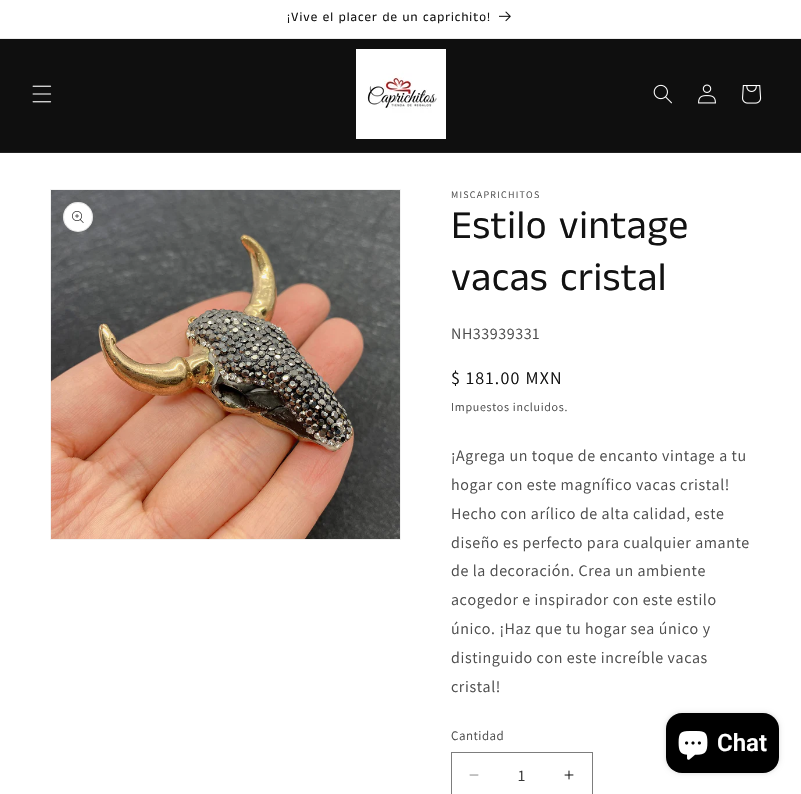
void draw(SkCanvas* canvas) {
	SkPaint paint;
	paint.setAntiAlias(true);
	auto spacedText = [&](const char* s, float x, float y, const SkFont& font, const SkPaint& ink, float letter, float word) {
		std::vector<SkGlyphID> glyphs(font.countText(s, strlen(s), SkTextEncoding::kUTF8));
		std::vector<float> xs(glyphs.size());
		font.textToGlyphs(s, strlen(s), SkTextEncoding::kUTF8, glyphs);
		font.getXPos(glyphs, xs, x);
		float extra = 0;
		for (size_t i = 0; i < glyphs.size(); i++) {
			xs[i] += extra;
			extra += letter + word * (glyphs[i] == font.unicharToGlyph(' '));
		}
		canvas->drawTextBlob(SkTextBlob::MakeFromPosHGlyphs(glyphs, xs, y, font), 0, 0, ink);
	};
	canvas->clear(0xffffffff);
	paint.setColor(0xffececec);
	canvas->drawRect(SkRect::MakeXYWH(0, 38, 801, 1), paint);
	SkFont f1(fontMgr->matchFamilyStyle("Anek Tamil", SkFontStyle::Normal()), 13);
	f1.setSubpixel(true);
	paint.setColor(0xff121212);
	spacedText("¡Vive el placer de un caprichito!", 287, 21, f1, paint, 1, 0);
	canvas->drawImageRect(SkImages::DeferredFromEncodedData(SkData::MakeFromFileName("img1.png")), SkRect::MakeXYWH(499, 11, 12, 11), SkSamplingOptions());
	paint.setColor(0xff0f0f0f);
	canvas->drawRect(SkRect::MakeXYWH(0, 39, 801, 113), paint);
	paint.setColor(0xff222222);
	canvas->drawRect(SkRect::MakeXYWH(0, 152, 801, 1), paint);
	canvas->drawImageRect(SkImages::DeferredFromEncodedData(SkData::MakeFromFileName("img2.png")), SkRect::MakeXYWH(32, 85, 20, 18), SkSamplingOptions());
	canvas->drawImageRect(SkImages::DeferredFromEncodedData(SkData::MakeFromFileName("img3.png")), SkRect::MakeXYWH(356, 49, 90, 90), SkSamplingOptions());
	canvas->drawImageRect(SkImages::DeferredFromEncodedData(SkData::MakeFromFileName("img4.png")), SkRect::MakeXYWH(653, 84, 19, 20), SkSamplingOptions());
	canvas->drawImageRect(SkImages::DeferredFromEncodedData(SkData::MakeFromFileName("img5.png")), SkRect::MakeXYWH(698, 84, 18, 20), SkSamplingOptions());
	canvas->drawImageRect(SkImages::DeferredFromEncodedData(SkData::MakeFromFileName("img6.png")), SkRect::MakeXYWH(742, 85, 20, 19), SkSamplingOptions());
	paint.setStroke(true);
	paint.setStrokeWidth(1);
	paint.setColor(0xfff3f3f3);
	canvas->drawRect(SkRect::MakeXYWH(50.5, 189.5, 350, 350), paint);
	canvas->drawImageRect(SkImages::DeferredFromEncodedData(SkData::MakeFromFileName("img7.png")), SkRect::MakeXYWH(51, 190, 349, 349), SkSamplingOptions());
	paint.setStroke(false);
	paint.setColor(0xffffffff);
	canvas->drawCircle(78, 217, 15, paint);
	paint.setStroke(true);
	paint.setColor(0x1a121212);
	canvas->drawCircle(78, 217, 14.5, paint);
	canvas->drawImageRect(SkImages::DeferredFromEncodedData(SkData::MakeFromFileName("img8.png")), SkRect::MakeXYWH(72, 211, 12, 12), SkSamplingOptions());
	SkFont f2(fontMgr->matchFamilyStyle("Assistant", SkFontStyle::Normal()), 10);
	f2.setSubpixel(true);
	paint.setStroke(false);
	paint.setColor(0xff4d4d4d);
	spacedText("MISCAPRICHITOS", 451, 198, f2, paint, 1.25, 0);
	SkFont f3(fontMgr->matchFamilyStyle("Anek Tamil", SkFontStyle::Normal()), 40);
	f3.setSubpixel(true);
	paint.setColor(0xff121212);
	spacedText("Estilo vintage", 451, 238, f3, paint, 0.6, 0);
	spacedText("vacas cristal", 451, 290, f3, paint, 0.6, 0);
	SkFont f4(fontMgr->matchFamilyStyle("Assistant", SkFontStyle::Normal()), 16);
	f4.setSubpixel(true);
	paint.setColor(0xff4d4d4d);
	spacedText("NH33939331", 451, 339, f4, paint, 0.6, 0);
	SkFont f5(fontMgr->matchFamilyStyle("Assistant", SkFontStyle::Normal()), 18);
	f5.setSubpixel(true);
	paint.setColor(0xff121212);
	spacedText("$ 181.00 MXN", 451, 384, f5, paint, 1.25, 0);
	SkFont f6(fontMgr->matchFamilyStyle("Assistant", SkFontStyle::Normal()), 12);
	f6.setSubpixel(true);
	paint.setColor(0xff4d4d4d);
	spacedText("Impuestos incluidos.", 451, 411, f6, paint, 0.7, 0);
	spacedText("¡Agrega un toque de encanto vintage a tu", 451, 461, f4, paint, 0.6, 0);
	spacedText("hogar con este magnífico vacas cristal!", 451, 490, f4, paint, 0.6, 0);
	spacedText("Hecho con arílico de alta calidad, este", 451, 519, f4, paint, 0.6, 0);
	spacedText("diseño es perfecto para cualquier amante", 451, 548, f4, paint, 0.6, 0);
	spacedText("de la decoración. Crea un ambiente", 451, 576, f4, paint, 0.6, 0);
	spacedText("acogedor e inspirador con este estilo", 451, 605, f4, paint, 0.6, 0);
	spacedText("único. ¡Haz que tu hogar sea único y", 451, 634, f4, paint, 0.6, 0);
	spacedText("distinguido con este increíble vacas", 451, 663, f4, paint, 0.6, 0);
	spacedText("cristal!", 451, 692, f4, paint, 0.6, 0);
	SkFont f7(fontMgr->matchFamilyStyle("Assistant", SkFontStyle::Normal()), 13);
	f7.setSubpixel(true);
	spacedText("Cantidad", 451, 740, f7, paint, 0.5, 0);
	canvas->drawImageRect(SkImages::DeferredFromEncodedData(SkData::MakeFromFileName("img9.png")), SkRect::MakeXYWH(469, 774, 10, 2), SkSamplingOptions());
	canvas->drawImageRect(SkImages::DeferredFromEncodedData(SkData::MakeFromFileName("img10.png")), SkRect::MakeXYWH(564, 770, 10, 10), SkSamplingOptions());
	paint.setStroke(true);
	paint.setColor(0xff7d7d7d);
	canvas->drawRect(SkRect::MakeXYWH(451.5, 752.5, 141, 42), paint);
	paint.setStroke(false);
	paint.setColor(0xff363636);
	canvas->drawString("1", 518, 781, f4, paint);
	paint.setColor(0x26000000);
	paint.setMaskFilter(SkMaskFilter::MakeBlur(kNormal_SkBlurStyle, 2.5));
	canvas->drawRoundRect(SkRect::MakeXYWH(666, 713, 113, 60), 16, 16, paint);
	paint.setMaskFilter(nullptr);
	paint.setColor(0xff000000);
	canvas->drawRoundRect(SkRect::MakeXYWH(666, 713, 113, 60), 16, 16, paint);
	canvas->drawImageRect(SkImages::DeferredFromEncodedData(SkData::MakeFromFileName("img11.png")), SkRect::MakeXYWH(678, 731, 30, 29), SkSamplingOptions());
	SkFont f8(fontMgr->matchFamilyStyle("Roboto", SkFontStyle(600, SkFontStyle::kNormal_Width, SkFontStyle::kUpright_Slant)), 24);
	f8.setSubpixel(true);
	paint.setColor(0xffffffff);
	canvas->drawString("Chat", 717, 751, f8, paint);
}
